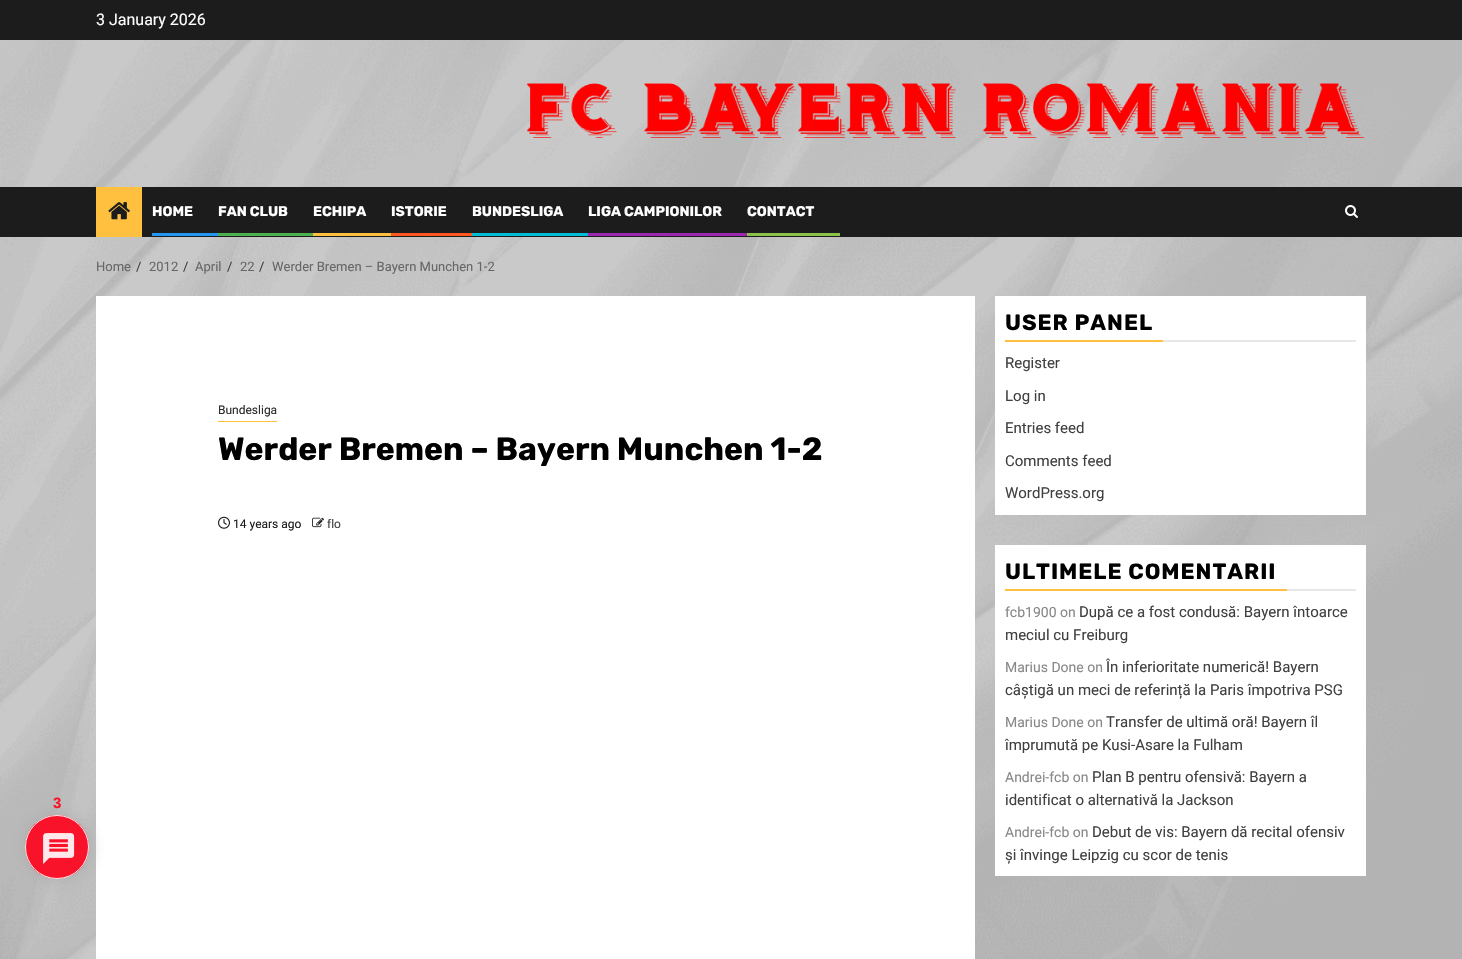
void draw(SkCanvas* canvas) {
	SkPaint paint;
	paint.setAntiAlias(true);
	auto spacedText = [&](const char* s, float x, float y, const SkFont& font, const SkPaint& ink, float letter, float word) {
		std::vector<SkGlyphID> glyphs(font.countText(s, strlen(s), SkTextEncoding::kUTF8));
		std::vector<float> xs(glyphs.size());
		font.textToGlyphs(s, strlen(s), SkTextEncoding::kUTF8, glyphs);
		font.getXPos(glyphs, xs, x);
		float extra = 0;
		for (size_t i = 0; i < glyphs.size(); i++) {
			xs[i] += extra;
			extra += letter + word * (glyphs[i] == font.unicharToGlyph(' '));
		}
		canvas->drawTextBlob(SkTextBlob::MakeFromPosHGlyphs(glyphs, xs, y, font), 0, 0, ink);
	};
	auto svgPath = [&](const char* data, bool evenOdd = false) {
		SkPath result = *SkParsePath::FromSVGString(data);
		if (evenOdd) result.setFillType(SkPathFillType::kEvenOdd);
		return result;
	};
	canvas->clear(0xffffffff);
	canvas->drawImageRect(SkImages::DeferredFromEncodedData(SkData::MakeFromFileName("img1.png")), SkRect::MakeXYWH(0, 237, 1462, 722), SkSamplingOptions());
	paint.setColor(0xff1c1c1c);
	canvas->drawRect(SkRect::MakeXYWH(0, 0, 1462, 40), paint);
	SkFont f1(fontMgr->matchFamilyStyle("Roboto", SkFontStyle::Normal()), 16);
	f1.setSubpixel(true);
	paint.setColor(0xffffffff);
	canvas->drawString("3 January 2026", 96, 25, f1, paint);
	canvas->drawImageRect(SkImages::DeferredFromEncodedData(SkData::MakeFromFileName("img2.png")), SkRect::MakeXYWH(0, 40, 1462, 147), SkSamplingOptions());
	canvas->drawImageRect(SkImages::DeferredFromEncodedData(SkData::MakeFromFileName("img3.png")), SkRect::MakeXYWH(526, 83, 839, 55), SkSamplingOptions());
	paint.setColor(0xff1c1c1c);
	canvas->drawRect(SkRect::MakeXYWH(0, 187, 1462, 50), paint);
	paint.setColor(0xffffbf3f);
	canvas->drawRect(SkRect::MakeXYWH(96, 187, 46, 50), paint);
	canvas->drawImageRect(SkImages::DeferredFromEncodedData(SkData::MakeFromFileName("img4.png")), SkRect::MakeXYWH(108, 202, 22, 18), SkSamplingOptions());
	SkFont f2(fontMgr->matchFamilyStyle("Rubik", SkFontStyle::Bold()), 14);
	f2.setSubpixel(true);
	paint.setColor(0xffffffff);
	canvas->drawString("HOME", 152, 216, f2, paint);
	paint.setColor(0xff2196f3);
	canvas->drawRect(SkRect::MakeXYWH(152, 233, 66, 3), paint);
	paint.setColor(0xffffffff);
	canvas->drawString("FAN CLUB", 218, 216, f2, paint);
	paint.setColor(0xff4caf50);
	canvas->drawRect(SkRect::MakeXYWH(218, 233, 95, 3), paint);
	paint.setColor(0xffffffff);
	canvas->drawString("ECHIPA", 313, 216, f2, paint);
	paint.setColor(0xffffbf3f);
	canvas->drawRect(SkRect::MakeXYWH(313, 233, 78, 3), paint);
	paint.setColor(0xffffffff);
	canvas->drawString("ISTORIE", 391, 216, f2, paint);
	paint.setColor(0xffff5722);
	canvas->drawRect(SkRect::MakeXYWH(391, 233, 81, 3), paint);
	paint.setColor(0xffffffff);
	canvas->drawString("BUNDESLIGA", 472, 216, f2, paint);
	paint.setColor(0xff00bcd4);
	canvas->drawRect(SkRect::MakeXYWH(472, 233, 116, 3), paint);
	paint.setColor(0xffffffff);
	canvas->drawString("LIGA CAMPIONILOR", 588, 216, f2, paint);
	paint.setColor(0xff9c27b0);
	canvas->drawRect(SkRect::MakeXYWH(588, 233, 159, 3), paint);
	paint.setColor(0xffffffff);
	canvas->drawString("CONTACT", 747, 216, f2, paint);
	paint.setColor(0xff8bc34a);
	canvas->drawRect(SkRect::MakeXYWH(747, 233, 93, 3), paint);
	canvas->drawImageRect(SkImages::DeferredFromEncodedData(SkData::MakeFromFileName("img5.png")), SkRect::MakeXYWH(1345, 205, 13, 13), SkSamplingOptions());
	SkFont f3(fontMgr->matchFamilyStyle("Roboto", SkFontStyle::Normal()), 13);
	f3.setSubpixel(true);
	paint.setColor(0xff676767);
	canvas->drawString("Home", 96, 271, f3, paint);
	paint.setColor(0xff393e46);
	canvas->drawString("/", 136, 271, f3, paint);
	paint.setColor(0xff676767);
	canvas->drawString("2012", 149, 271, f3, paint);
	paint.setColor(0xff393e46);
	canvas->drawString("/", 183, 271, f3, paint);
	paint.setColor(0xff676767);
	canvas->drawString("April", 195, 271, f3, paint);
	paint.setColor(0xff393e46);
	canvas->drawString("/", 227, 271, f3, paint);
	paint.setColor(0xff676767);
	canvas->drawString("22", 240, 271, f3, paint);
	paint.setColor(0xff393e46);
	canvas->drawString("/", 259, 271, f3, paint);
	paint.setColor(0xff676767);
	canvas->drawString("Werder Bremen – Bayern Munchen 1-2", 272, 271, f3, paint);
	paint.setColor(0xffffffff);
	canvas->drawRect(SkRect::MakeXYWH(96, 296, 879, 663), paint);
	canvas->save();
	canvas->clipPath(svgPath("M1 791H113V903H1ZM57 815C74.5 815 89 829.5 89 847C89 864.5 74.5 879 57 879C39.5 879 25 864.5 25 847C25 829.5 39.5 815 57 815Z", true), true);
	paint.setColor(0xe6aaaaaa);
	paint.setMaskFilter(SkMaskFilter::MakeBlur(kNormal_SkBlurStyle, 7.5));
	canvas->drawRoundRect(SkRect::MakeXYWH(25, 815, 64, 64), 32, 32, paint);
	paint.setMaskFilter(nullptr);
	canvas->restore();
	paint.setColor(0xe6ff0019);
	canvas->drawCircle(57, 847, 32, paint);
	paint.setStroke(true);
	paint.setStrokeWidth(1);
	paint.setColor(0xe6ffffff);
	canvas->drawCircle(57, 847, 31.5, paint);
	canvas->drawImageRect(SkImages::DeferredFromEncodedData(SkData::MakeFromFileName("img6.png")), SkRect::MakeXYWH(43, 833, 32, 31), SkSamplingOptions());
	SkFont f4(fontMgr->matchFamilyStyle("Liberation Sans", SkFontStyle::Bold()), 15);
	f4.setSubpixel(true);
	paint.setStroke(false);
	paint.setColor(0xfff81329);
	canvas->drawString("3", 53, 808, f4, paint);
	paint.setColor(0xffffbf3f);
	canvas->drawRect(SkRect::MakeXYWH(218, 421, 59, 1), paint);
	SkFont f5(fontMgr->matchFamilyStyle("Roboto", SkFontStyle::Normal()), 12);
	f5.setSubpixel(true);
	paint.setColor(0xff2b2b2b);
	canvas->drawString("Bundesliga", 218, 414, f5, paint);
	SkFont f6(fontMgr->matchFamilyStyle("Rubik", SkFontStyle::Bold()), 32);
	f6.setSubpixel(true);
	paint.setColor(0xff000000);
	canvas->drawString("Werder Bremen – Bayern Munchen 1-2", 218, 460, f6, paint);
	canvas->drawImageRect(SkImages::DeferredFromEncodedData(SkData::MakeFromFileName("img7.png")), SkRect::MakeXYWH(218, 516, 12, 13), SkSamplingOptions());
	paint.setColor(0xff1c1c1c);
	canvas->drawString("14 years ago", 233, 528, f5, paint);
	canvas->drawImageRect(SkImages::DeferredFromEncodedData(SkData::MakeFromFileName("img8.png")), SkRect::MakeXYWH(312, 517, 12, 11), SkSamplingOptions());
	paint.setColor(0xff404040);
	canvas->drawString("flo", 327, 528, f5, paint);
	paint.setColor(0xffffffff);
	canvas->drawRect(SkRect::MakeXYWH(995, 296, 371, 219), paint);
	paint.setColor(0xffffbf3f);
	canvas->drawRect(SkRect::MakeXYWH(1005, 340, 158, 2), paint);
	SkFont f7(fontMgr->matchFamilyStyle("Rubik", SkFontStyle::Bold()), 22);
	f7.setSubpixel(true);
	paint.setColor(0xff000000);
	spacedText("USER PANEL", 1005, 330, f7, paint, 1, 0);
	paint.setColor(0xffe7e7e7);
	canvas->drawRect(SkRect::MakeXYWH(1163, 340, 193, 2), paint);
	SkFont f8(fontMgr->matchFamilyStyle("Roboto", SkFontStyle::Normal()), 15);
	f8.setSubpixel(true);
	paint.setColor(0xff404040);
	canvas->drawString("Register", 1005, 368, f8, paint);
	canvas->drawString("Log in", 1005, 401, f8, paint);
	canvas->drawString("Entries feed", 1005, 433, f8, paint);
	canvas->drawString("Comments feed", 1005, 466, f8, paint);
	canvas->drawString("WordPress.org", 1005, 498, f8, paint);
	paint.setColor(0xffffffff);
	canvas->drawRect(SkRect::MakeXYWH(995, 545, 371, 331), paint);
	paint.setColor(0xffffbf3f);
	canvas->drawRect(SkRect::MakeXYWH(1005, 589, 282, 2), paint);
	paint.setColor(0xff000000);
	spacedText("ULTIMELE COMENTARII", 1005, 579, f7, paint, 1, 0);
	paint.setColor(0xffe7e7e7);
	canvas->drawRect(SkRect::MakeXYWH(1287, 589, 69, 2), paint);
	SkFont f9(fontMgr->matchFamilyStyle("Roboto", SkFontStyle::Normal()), 14);
	f9.setSubpixel(true);
	paint.setColor(0xff888888);
	canvas->drawString("fcb1900 on", 1005, 617, f9, paint);
	paint.setColor(0xff404040);
	canvas->drawString("După ce a fost condusă: Bayern întoarce", 1079, 617, f8, paint);
	canvas->drawString("meciul cu Freiburg", 1005, 640, f8, paint);
	paint.setColor(0xff888888);
	canvas->drawString("Marius Done on", 1005, 672, f9, paint);
	paint.setColor(0xff404040);
	canvas->drawString("În inferioritate numerică! Bayern", 1106, 672, f8, paint);
	canvas->drawString("câștigă un meci de referință la Paris împotriva PSG", 1005, 695, f8, paint);
	paint.setColor(0xff888888);
	canvas->drawString("Marius Done on", 1005, 727, f9, paint);
	paint.setColor(0xff404040);
	canvas->drawString("Transfer de ultimă oră! Bayern îl", 1106, 727, f8, paint);
	canvas->drawString("împrumută pe Kusi-Asare la Fulham", 1005, 750, f8, paint);
	paint.setColor(0xff888888);
	canvas->drawString("Andrei-fcb on", 1005, 782, f9, paint);
	paint.setColor(0xff404040);
	canvas->drawString("Plan B pentru ofensivă: Bayern a", 1092, 782, f8, paint);
	canvas->drawString("identificat o alternativă la Jackson", 1005, 805, f8, paint);
	paint.setColor(0xff888888);
	canvas->drawString("Andrei-fcb on", 1005, 837, f9, paint);
	paint.setColor(0xff404040);
	canvas->drawString("Debut de vis: Bayern dă recital ofensiv", 1092, 837, f8, paint);
	canvas->drawString("și învinge Leipzig cu scor de tenis", 1005, 860, f8, paint);
}
